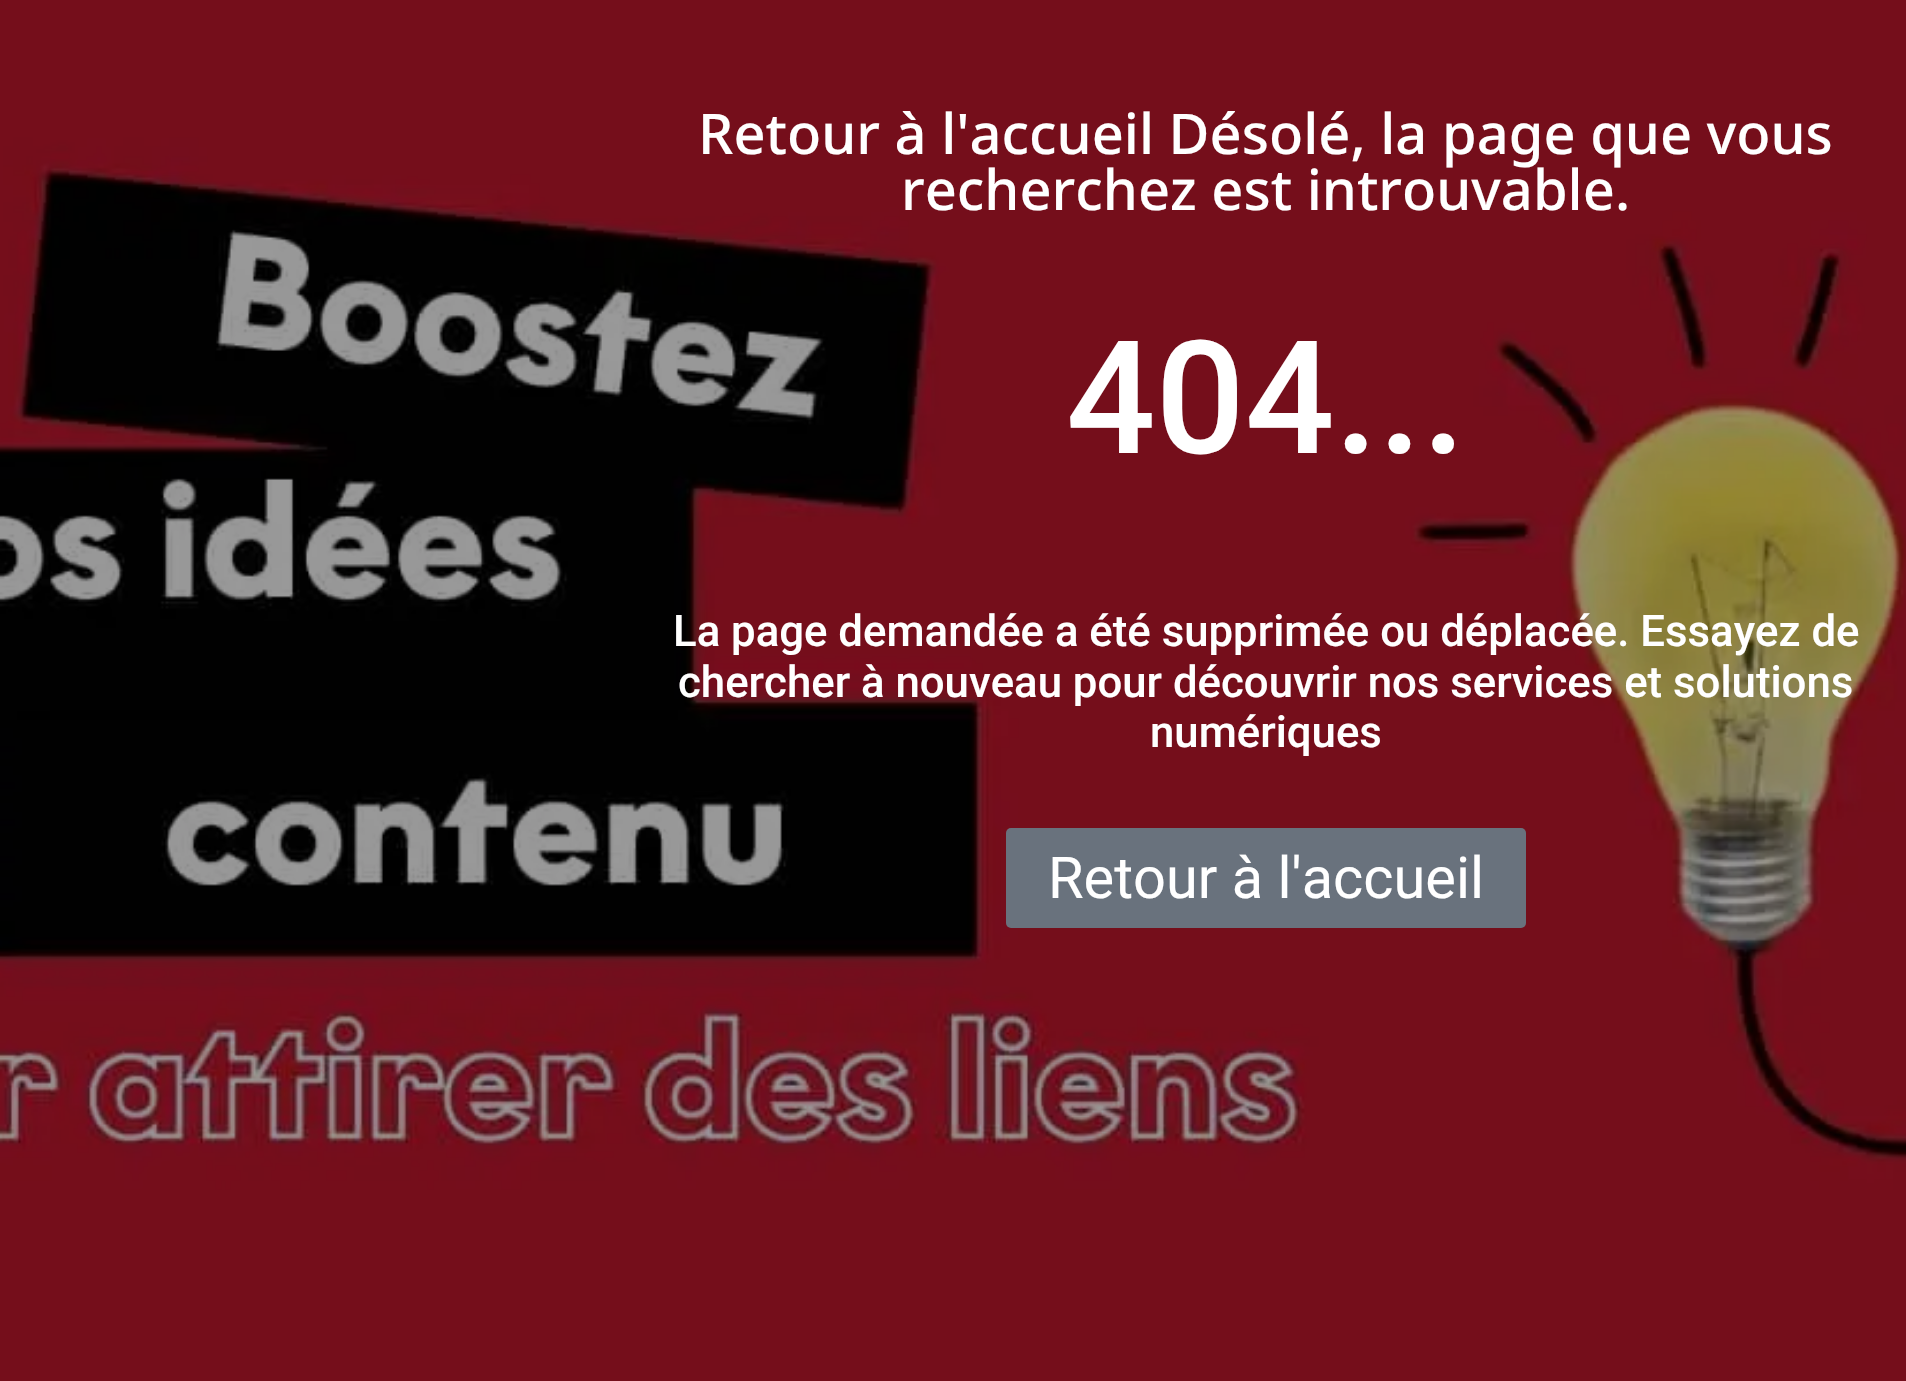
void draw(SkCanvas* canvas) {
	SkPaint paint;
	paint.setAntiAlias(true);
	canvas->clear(0xffffffff);
	canvas->drawImageRect(SkImages::DeferredFromEncodedData(SkData::MakeFromFileName("img1.png")), SkRect::MakeXYWH(0, 0, 1906, 1381), SkSamplingOptions());
	SkFont f1(fontMgr->matchFamilyStyle("Noto Sans", SkFontStyle(500, SkFontStyle::kNormal_Width, SkFontStyle::kUpright_Slant)), 56);
	f1.setSubpixel(true);
	paint.setColor(0xffffffff);
	canvas->drawString("Retour à l'accueil Désolé, la page que vous", 698, 154, f1, paint);
	canvas->drawString("recherchez est introuvable.", 901, 210, f1, paint);
	SkFont f2(fontMgr->matchFamilyStyle("Roboto", SkFontStyle(500, SkFontStyle::kNormal_Width, SkFontStyle::kUpright_Slant)), 157.5);
	f2.setSubpixel(true);
	canvas->drawString("404...", 1066, 453, f2, paint);
	SkFont f3(fontMgr->matchFamilyStyle("Roboto", SkFontStyle(500, SkFontStyle::kNormal_Width, SkFontStyle::kUpright_Slant)), 43.75);
	f3.setSubpixel(true);
	canvas->drawString("La page demandée a été supprimée ou déplacée. Essayez de", 673, 646, f3, paint);
	canvas->drawString("chercher à nouveau pour découvrir nos services et solutions", 678, 697, f3, paint);
	canvas->drawString("numériques", 1150, 747, f3, paint);
	paint.setColor(0xff69727d);
	canvas->drawRoundRect(SkRect::MakeXYWH(1006, 828, 520, 100), 5, 5, paint);
	SkFont f4(fontMgr->matchFamilyStyle("Roboto", SkFontStyle::Normal()), 57.75);
	f4.setSubpixel(true);
	paint.setColor(0xffffffff);
	canvas->drawString("Retour à l'accueil", 1048, 898, f4, paint);
}
